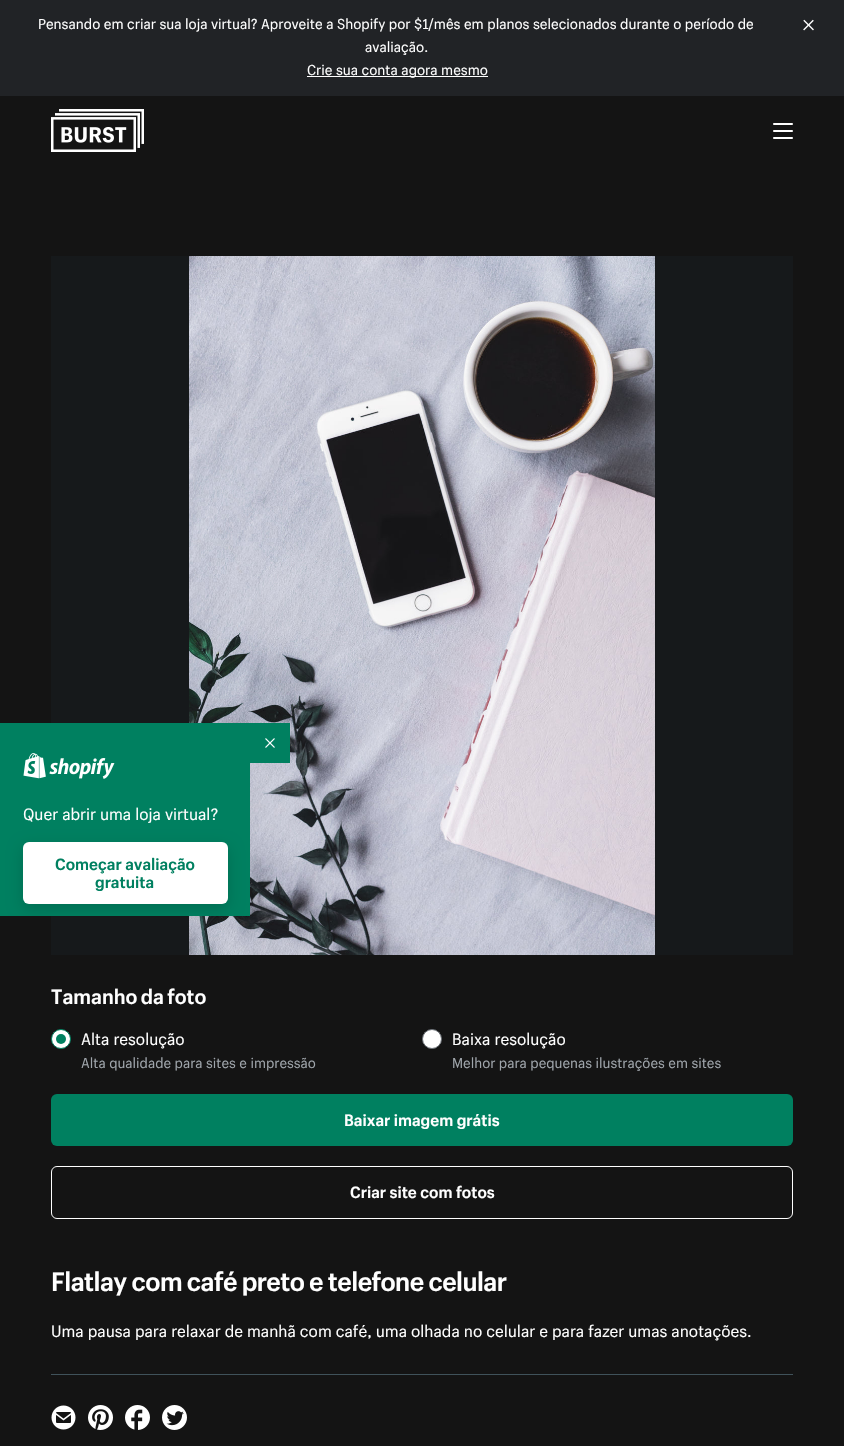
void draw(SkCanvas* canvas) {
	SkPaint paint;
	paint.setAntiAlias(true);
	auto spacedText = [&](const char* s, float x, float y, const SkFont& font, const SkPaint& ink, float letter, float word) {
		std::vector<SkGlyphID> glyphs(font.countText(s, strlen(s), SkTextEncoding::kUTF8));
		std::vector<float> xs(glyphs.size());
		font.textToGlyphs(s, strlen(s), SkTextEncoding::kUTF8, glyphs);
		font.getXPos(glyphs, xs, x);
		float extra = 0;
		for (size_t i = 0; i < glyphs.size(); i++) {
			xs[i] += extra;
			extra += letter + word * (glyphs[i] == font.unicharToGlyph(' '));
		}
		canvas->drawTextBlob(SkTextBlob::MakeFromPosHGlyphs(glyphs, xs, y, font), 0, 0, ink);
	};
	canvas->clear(0xff141414);
	paint.setColor(0xff212326);
	canvas->drawRect(SkRect::MakeXYWH(0, 0, 844, 96), paint);
	SkFont f1(fontMgr->matchFamilyStyle("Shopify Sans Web", SkFontStyle::Normal()), 14);
	f1.setSubpixel(true);
	paint.setColor(0xffffffff);
	canvas->drawString("Pensando em criar sua loja virtual? Aproveite a Shopify por $1/mês em planos selecionados durante o período de", 38, 29, f1, paint);
	canvas->drawString("avaliação.", 365, 52, f1, paint);
	canvas->drawRect(SkRect::MakeXYWH(307, 76, 181, 1), paint);
	canvas->drawString("Crie sua conta agora mesmo", 307, 75, f1, paint);
	canvas->drawImageRect(SkImages::DeferredFromEncodedData(SkData::MakeFromFileName("img1.png")), SkRect::MakeXYWH(803, 19, 11, 12), SkSamplingOptions());
	canvas->drawImageRect(SkImages::DeferredFromEncodedData(SkData::MakeFromFileName("img2.png")), SkRect::MakeXYWH(51, 109, 93, 43), SkSamplingOptions());
	canvas->drawImageRect(SkImages::DeferredFromEncodedData(SkData::MakeFromFileName("img3.png")), SkRect::MakeXYWH(773, 123, 20, 16), SkSamplingOptions());
	paint.setColor(0xff16191b);
	canvas->drawRect(SkRect::MakeXYWH(51, 256, 742, 699), paint);
	canvas->drawImageRect(SkImages::DeferredFromEncodedData(SkData::MakeFromFileName("img6.png")), SkRect::MakeXYWH(189, 256, 466, 699), SkSamplingOptions());
	paint.setColor(0xff008060);
	canvas->drawRect(SkRect::MakeXYWH(250, 723, 40, 40), paint);
	canvas->drawImageRect(SkImages::DeferredFromEncodedData(SkData::MakeFromFileName("img4.png")), SkRect::MakeXYWH(265, 738, 10, 10), SkSamplingOptions());
	canvas->drawRect(SkRect::MakeXYWH(0, 723, 250, 193), paint);
	canvas->drawImageRect(SkImages::DeferredFromEncodedData(SkData::MakeFromFileName("img5.png")), SkRect::MakeXYWH(23, 753, 92, 26), SkSamplingOptions());
	SkFont f2(fontMgr->matchFamilyStyle("Shopify Sans Web", SkFontStyle::Normal()), 16);
	f2.setSubpixel(true);
	paint.setColor(0xffffffff);
	canvas->drawString("Quer abrir uma loja virtual?", 23, 820, f2, paint);
	paint.setColor(0x26000000);
	paint.setMaskFilter(SkMaskFilter::MakeBlur(kNormal_SkBlurStyle, 7.5));
	canvas->drawRoundRect(SkRect::MakeXYWH(23, 847, 205, 62), 6, 6, paint);
	paint.setMaskFilter(nullptr);
	paint.setColor(0xffffffff);
	canvas->drawRoundRect(SkRect::MakeXYWH(23, 842, 205, 62), 6, 6, paint);
	SkFont f3(fontMgr->matchFamilyStyle("Shopify Sans Web", SkFontStyle::Bold()), 16);
	f3.setSubpixel(true);
	paint.setColor(0xff008060);
	canvas->drawString("Começar avaliação", 55, 870, f3, paint);
	canvas->drawString("gratuita", 95, 888, f3, paint);
	SkFont f4(fontMgr->matchFamilyStyle("Shopify Sans Web", SkFontStyle::Bold()), 20.25);
	f4.setSubpixel(true);
	paint.setColor(0xffffffff);
	spacedText("Tamanho da foto", 51, 1004, f4, paint, 0, -1);
	canvas->drawCircle(61, 1039, 9.5, paint);
	paint.setStroke(true);
	paint.setStrokeWidth(1);
	paint.setColor(0xff008060);
	canvas->drawCircle(61, 1039, 9.5, paint);
	paint.setStroke(false);
	paint.setColor(0xffffffff);
	canvas->drawString("Alta resolução", 81, 1045, f2, paint);
	paint.setColor(0xff008060);
	canvas->drawCircle(61, 1039, 5, paint);
	SkFont f5(fontMgr->matchFamilyStyle("Shopify Sans Web", SkFontStyle::Normal()), 13.9);
	f5.setSubpixel(true);
	paint.setColor(0xff9fa5ab);
	canvas->drawString("Alta qualidade para sites e impressão", 81, 1068, f5, paint);
	paint.setColor(0xffffffff);
	canvas->drawCircle(432, 1039, 9.5, paint);
	paint.setStroke(true);
	paint.setColor(0xff6b7177);
	canvas->drawCircle(432, 1039, 9.5, paint);
	paint.setStroke(false);
	paint.setColor(0xffffffff);
	canvas->drawString("Baixa resolução", 452, 1045, f2, paint);
	paint.setColor(0xff9fa5ab);
	canvas->drawString("Melhor para pequenas ilustrações em sites", 452, 1068, f5, paint);
	paint.setColor(0xff008060);
	canvas->drawRoundRect(SkRect::MakeXYWH(51, 1094, 742, 52), 6, 6, paint);
	paint.setColor(0xffffffff);
	canvas->drawString("Baixar imagem grátis", 344, 1126, f3, paint);
	paint.setStroke(true);
	canvas->drawRoundRect(SkRect::MakeXYWH(51.5, 1166.5, 741, 52), 5.5, 5.5, paint);
	paint.setStroke(false);
	canvas->drawString("Criar site com fotos", 350, 1198, f3, paint);
	paint.setColor(0xff40525a);
	canvas->drawRect(SkRect::MakeXYWH(51, 1374, 742, 1), paint);
	SkFont f6(fontMgr->matchFamilyStyle("Shopify Sans Web", SkFontStyle::Bold()), 25.9);
	f6.setSubpixel(true);
	paint.setColor(0xffffffff);
	spacedText("Flatlay com café preto e telefone celular", 51, 1291, f6, paint, -0.55, -0.25);
	canvas->drawString("Uma pausa para relaxar de manhã com café, uma olhada no celular e para fazer umas anotações.", 51, 1337, f2, paint);
	canvas->drawImageRect(SkImages::DeferredFromEncodedData(SkData::MakeFromFileName("img7.png")), SkRect::MakeXYWH(51, 1405, 25, 25), SkSamplingOptions());
	canvas->drawImageRect(SkImages::DeferredFromEncodedData(SkData::MakeFromFileName("img8.png")), SkRect::MakeXYWH(88, 1405, 25, 25), SkSamplingOptions());
	canvas->drawImageRect(SkImages::DeferredFromEncodedData(SkData::MakeFromFileName("img9.png")), SkRect::MakeXYWH(125, 1405, 25, 25), SkSamplingOptions());
	canvas->drawImageRect(SkImages::DeferredFromEncodedData(SkData::MakeFromFileName("img10.png")), SkRect::MakeXYWH(162, 1405, 25, 25), SkSamplingOptions());
}
